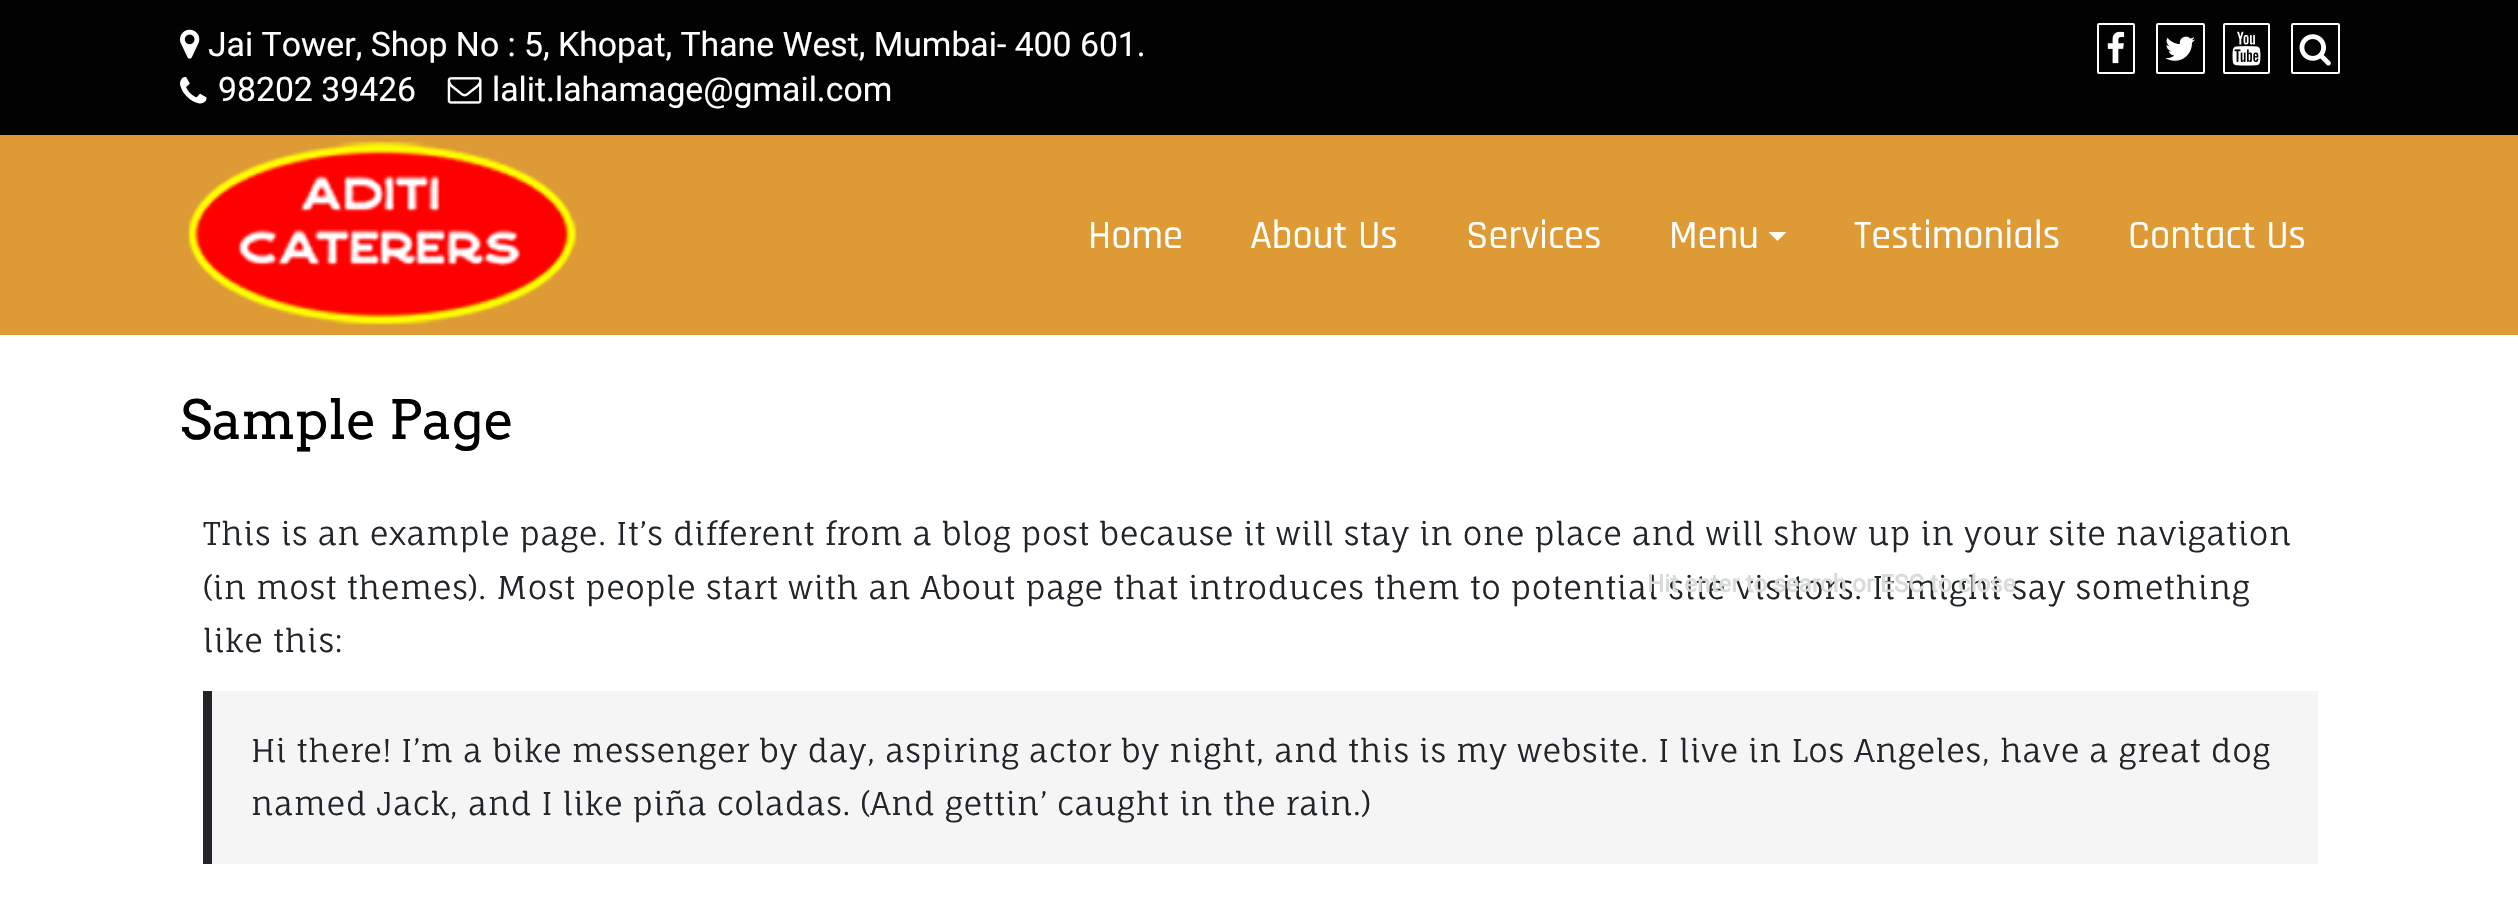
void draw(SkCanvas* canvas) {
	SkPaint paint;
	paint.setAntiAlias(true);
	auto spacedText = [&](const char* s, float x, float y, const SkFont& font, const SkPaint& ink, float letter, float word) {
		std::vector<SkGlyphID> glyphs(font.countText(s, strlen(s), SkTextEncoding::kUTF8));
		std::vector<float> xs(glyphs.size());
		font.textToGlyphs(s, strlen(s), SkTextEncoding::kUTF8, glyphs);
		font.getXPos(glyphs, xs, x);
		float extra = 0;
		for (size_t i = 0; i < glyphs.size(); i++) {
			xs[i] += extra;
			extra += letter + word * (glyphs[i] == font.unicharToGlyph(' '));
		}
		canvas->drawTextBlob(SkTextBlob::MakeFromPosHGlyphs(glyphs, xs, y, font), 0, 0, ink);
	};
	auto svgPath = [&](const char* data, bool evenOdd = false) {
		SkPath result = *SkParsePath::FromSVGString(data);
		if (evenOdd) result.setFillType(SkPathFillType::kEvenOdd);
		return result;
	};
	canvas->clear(0xffffffff);
	paint.setColor(0xff020202);
	canvas->drawRect(SkRect::MakeXYWH(0, 0, 2518, 135), paint);
	canvas->drawImageRect(SkImages::DeferredFromEncodedData(SkData::MakeFromFileName("img1.png")), SkRect::MakeXYWH(180, 29, 20, 30), SkSamplingOptions());
	SkFont f1(fontMgr->matchFamilyStyle("Roboto", SkFontStyle::Normal()), 33.75);
	f1.setSubpixel(true);
	paint.setColor(0xffffffff);
	canvas->drawString("Jai Tower, Shop No : 5, Khopat, Thane West, Mumbai- 400 601.", 208, 56, f1, paint);
	canvas->drawImageRect(SkImages::DeferredFromEncodedData(SkData::MakeFromFileName("img2.png")), SkRect::MakeXYWH(180, 77, 27, 27), SkSamplingOptions());
	canvas->drawString("98202 39426", 218, 101, f1, paint);
	canvas->drawImageRect(SkImages::DeferredFromEncodedData(SkData::MakeFromFileName("img3.png")), SkRect::MakeXYWH(447, 77, 35, 27), SkSamplingOptions());
	canvas->drawString("lalit.lahamage@gmail.com", 492, 101, f1, paint);
	paint.setStroke(true);
	paint.setStrokeWidth(2);
	canvas->drawRoundRect(SkRect::MakeXYWH(2098, 24, 36, 49), 1, 1, paint);
	canvas->drawImageRect(SkImages::DeferredFromEncodedData(SkData::MakeFromFileName("img4.png")), SkRect::MakeXYWH(2107, 31, 18, 33), SkSamplingOptions());
	canvas->drawRoundRect(SkRect::MakeXYWH(2157, 24, 47, 49), 1, 1, paint);
	canvas->drawImageRect(SkImages::DeferredFromEncodedData(SkData::MakeFromFileName("img5.png")), SkRect::MakeXYWH(2165, 36, 30, 25), SkSamplingOptions());
	canvas->drawRoundRect(SkRect::MakeXYWH(2224, 24, 45, 49), 1, 1, paint);
	canvas->drawImageRect(SkImages::DeferredFromEncodedData(SkData::MakeFromFileName("img6.png")), SkRect::MakeXYWH(2232, 31, 29, 35), SkSamplingOptions());
	canvas->drawRoundRect(SkRect::MakeXYWH(2292, 24, 47, 49), 1, 1, paint);
	canvas->drawImageRect(SkImages::DeferredFromEncodedData(SkData::MakeFromFileName("img7.png")), SkRect::MakeXYWH(2299, 34, 32, 32), SkSamplingOptions());
	SkFont f2(fontMgr->matchFamilyStyle("Fauna One", SkFontStyle::Normal()), 31.5);
	f2.setSubpixel(true);
	paint.setStroke(false);
	paint.setColor(0xff212529);
	spacedText("(in most themes). Most people start with an About page that introduces them to potential site visitors. It might say something", 203, 599, f2, paint, 0.45, 0);
	SkFont f3(fontMgr->matchFamilyStyle("Roboto", SkFontStyle::Bold()), 24.25);
	f3.setSubpixel(true);
	paint.setColor(0xffd9dada);
	canvas->drawString("Hit enter to search or ESC to close", 1647, 592, f3, paint);
	paint.setColor(0xffdd9a35);
	canvas->drawRect(SkRect::MakeXYWH(0, 135, 2518, 200), paint);
	canvas->drawImageRect(SkImages::DeferredFromEncodedData(SkData::MakeFromFileName("img8.png")), SkRect::MakeXYWH(188, 141, 389, 184), SkSamplingOptions());
	SkFont f4(fontMgr->matchFamilyStyle("Rajdhani", SkFontStyle(500, SkFontStyle::kNormal_Width, SkFontStyle::kUpright_Slant)), 40.5);
	f4.setSubpixel(true);
	paint.setColor(0xffffffff);
	canvas->drawString("Home", 1088, 248, f4, paint);
	canvas->drawString("About Us", 1250, 248, f4, paint);
	canvas->drawString("Services", 1466, 248, f4, paint);
	canvas->drawString("Menu", 1669, 248, f4, paint);
	canvas->drawPath(svgPath("M1768.5 232H1786.5L1777.5 241Z"), paint);
	canvas->drawString("Testimonials", 1854, 248, f4, paint);
	canvas->drawString("Contact Us", 2128, 248, f4, paint);
	SkFont f5(fontMgr->matchFamilyStyle("Arvo", SkFontStyle::Normal()), 54);
	f5.setSubpixel(true);
	paint.setColor(0xff000000);
	canvas->drawString("Sample Page", 180, 439, f5, paint);
	paint.setColor(0xff212529);
	spacedText("This is an example page. It’s different from a blog post because it will stay in one place and will show up in your site navigation", 203, 545, f2, paint, 0.45, 0);
	spacedText("like this:", 203, 652, f2, paint, 0.45, 0);
	paint.setColor(0xfff5f5f5);
	canvas->drawRect(SkRect::MakeXYWH(212, 691, 2106, 173), paint);
	paint.setColor(0xff212529);
	canvas->drawRect(SkRect::MakeXYWH(203, 691, 9, 173), paint);
	spacedText("Hi there! I’m a bike messenger by day, aspiring actor by night, and this is my website. I live in Los Angeles, have a great dog", 251, 762, f2, paint, 0.45, 0);
	spacedText("named Jack, and I like piña coladas. (And gettin’ caught in the rain.)", 251, 815, f2, paint, 0.45, 0);
}
